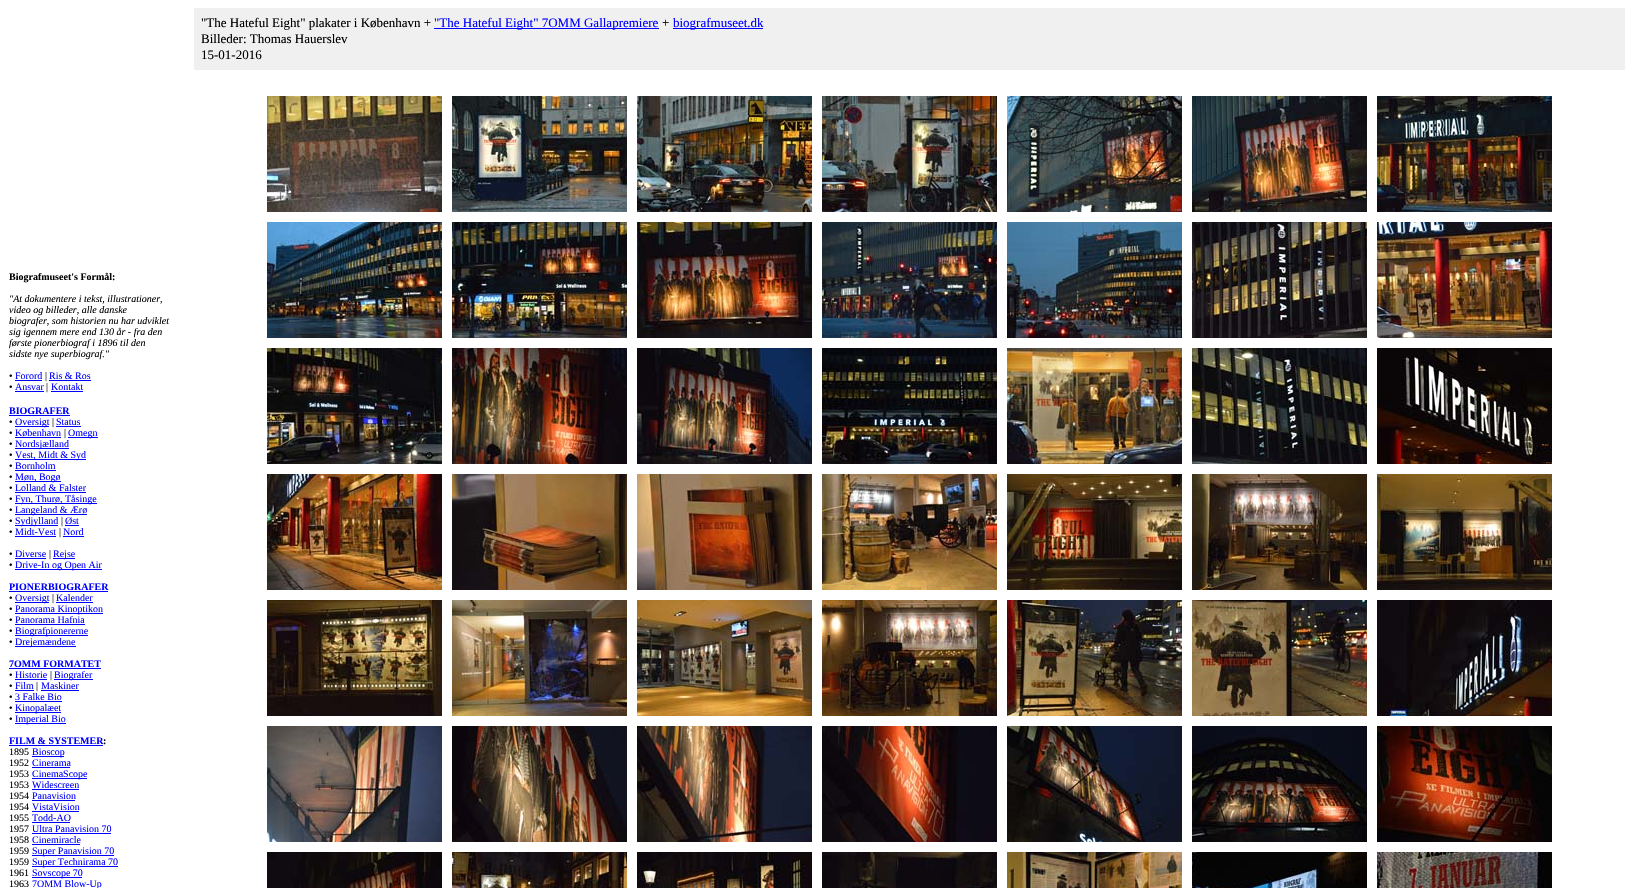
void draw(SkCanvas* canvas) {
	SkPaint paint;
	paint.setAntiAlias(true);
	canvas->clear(0xffffffff);
	paint.setColor(0xfff0f0f0);
	canvas->drawRect(SkRect::MakeXYWH(194, 8, 1431, 62), paint);
	SkFont f1(fontMgr->matchFamilyStyle("Liberation Serif", SkFontStyle::Normal()), 13);
	f1.setSubpixel(true);
	paint.setColor(0xff000000);
	canvas->drawString("\"The Hateful Eight\" plakater i København +", 201, 27, f1, paint);
	paint.setColor(0xff0000ff);
	canvas->drawRect(SkRect::MakeXYWH(434, 28, 225, 1), paint);
	canvas->drawString("\"The Hateful Eight\" 7OMM Gallapremiere", 434, 27, f1, paint);
	paint.setColor(0xff000000);
	canvas->drawString("+", 662, 27, f1, paint);
	paint.setColor(0xff0000ff);
	canvas->drawRect(SkRect::MakeXYWH(673, 28, 90, 1), paint);
	canvas->drawString("biografmuseet.dk", 673, 27, f1, paint);
	paint.setColor(0xff000000);
	canvas->drawString("Billeder: Thomas Hauerslev", 201, 43, f1, paint);
	canvas->drawString("15-01-2016", 201, 59, f1, paint);
	canvas->drawImageRect(SkImages::DeferredFromEncodedData(SkData::MakeFromFileName("img1.png")), SkRect::MakeXYWH(267, 96, 175, 116), SkSamplingOptions());
	canvas->drawImageRect(SkImages::DeferredFromEncodedData(SkData::MakeFromFileName("img2.png")), SkRect::MakeXYWH(452, 96, 175, 116), SkSamplingOptions());
	canvas->drawImageRect(SkImages::DeferredFromEncodedData(SkData::MakeFromFileName("img3.png")), SkRect::MakeXYWH(637, 96, 175, 116), SkSamplingOptions());
	canvas->drawImageRect(SkImages::DeferredFromEncodedData(SkData::MakeFromFileName("img4.png")), SkRect::MakeXYWH(822, 96, 175, 116), SkSamplingOptions());
	canvas->drawImageRect(SkImages::DeferredFromEncodedData(SkData::MakeFromFileName("img5.png")), SkRect::MakeXYWH(1007, 96, 175, 116), SkSamplingOptions());
	canvas->drawImageRect(SkImages::DeferredFromEncodedData(SkData::MakeFromFileName("img6.png")), SkRect::MakeXYWH(1192, 96, 175, 116), SkSamplingOptions());
	canvas->drawImageRect(SkImages::DeferredFromEncodedData(SkData::MakeFromFileName("img7.png")), SkRect::MakeXYWH(1377, 96, 175, 116), SkSamplingOptions());
	canvas->drawImageRect(SkImages::DeferredFromEncodedData(SkData::MakeFromFileName("img8.png")), SkRect::MakeXYWH(267, 222, 175, 116), SkSamplingOptions());
	canvas->drawImageRect(SkImages::DeferredFromEncodedData(SkData::MakeFromFileName("img9.png")), SkRect::MakeXYWH(452, 222, 175, 116), SkSamplingOptions());
	canvas->drawImageRect(SkImages::DeferredFromEncodedData(SkData::MakeFromFileName("img10.png")), SkRect::MakeXYWH(637, 222, 175, 116), SkSamplingOptions());
	canvas->drawImageRect(SkImages::DeferredFromEncodedData(SkData::MakeFromFileName("img11.png")), SkRect::MakeXYWH(822, 222, 175, 116), SkSamplingOptions());
	canvas->drawImageRect(SkImages::DeferredFromEncodedData(SkData::MakeFromFileName("img12.png")), SkRect::MakeXYWH(1007, 222, 175, 116), SkSamplingOptions());
	canvas->drawImageRect(SkImages::DeferredFromEncodedData(SkData::MakeFromFileName("img13.png")), SkRect::MakeXYWH(1192, 222, 175, 116), SkSamplingOptions());
	canvas->drawImageRect(SkImages::DeferredFromEncodedData(SkData::MakeFromFileName("img14.png")), SkRect::MakeXYWH(1377, 222, 175, 116), SkSamplingOptions());
	canvas->drawImageRect(SkImages::DeferredFromEncodedData(SkData::MakeFromFileName("img15.png")), SkRect::MakeXYWH(267, 348, 175, 116), SkSamplingOptions());
	canvas->drawImageRect(SkImages::DeferredFromEncodedData(SkData::MakeFromFileName("img16.png")), SkRect::MakeXYWH(452, 348, 175, 116), SkSamplingOptions());
	canvas->drawImageRect(SkImages::DeferredFromEncodedData(SkData::MakeFromFileName("img17.png")), SkRect::MakeXYWH(637, 348, 175, 116), SkSamplingOptions());
	canvas->drawImageRect(SkImages::DeferredFromEncodedData(SkData::MakeFromFileName("img18.png")), SkRect::MakeXYWH(822, 348, 175, 116), SkSamplingOptions());
	canvas->drawImageRect(SkImages::DeferredFromEncodedData(SkData::MakeFromFileName("img19.png")), SkRect::MakeXYWH(1007, 348, 175, 116), SkSamplingOptions());
	canvas->drawImageRect(SkImages::DeferredFromEncodedData(SkData::MakeFromFileName("img20.png")), SkRect::MakeXYWH(1192, 348, 175, 116), SkSamplingOptions());
	canvas->drawImageRect(SkImages::DeferredFromEncodedData(SkData::MakeFromFileName("img21.png")), SkRect::MakeXYWH(1377, 348, 175, 116), SkSamplingOptions());
	canvas->drawImageRect(SkImages::DeferredFromEncodedData(SkData::MakeFromFileName("img22.png")), SkRect::MakeXYWH(267, 474, 175, 116), SkSamplingOptions());
	canvas->drawImageRect(SkImages::DeferredFromEncodedData(SkData::MakeFromFileName("img23.png")), SkRect::MakeXYWH(452, 474, 175, 116), SkSamplingOptions());
	canvas->drawImageRect(SkImages::DeferredFromEncodedData(SkData::MakeFromFileName("img24.png")), SkRect::MakeXYWH(637, 474, 175, 116), SkSamplingOptions());
	canvas->drawImageRect(SkImages::DeferredFromEncodedData(SkData::MakeFromFileName("img25.png")), SkRect::MakeXYWH(822, 474, 175, 116), SkSamplingOptions());
	canvas->drawImageRect(SkImages::DeferredFromEncodedData(SkData::MakeFromFileName("img26.png")), SkRect::MakeXYWH(1007, 474, 175, 116), SkSamplingOptions());
	canvas->drawImageRect(SkImages::DeferredFromEncodedData(SkData::MakeFromFileName("img27.png")), SkRect::MakeXYWH(1192, 474, 175, 116), SkSamplingOptions());
	canvas->drawImageRect(SkImages::DeferredFromEncodedData(SkData::MakeFromFileName("img28.png")), SkRect::MakeXYWH(1377, 474, 175, 116), SkSamplingOptions());
	canvas->drawImageRect(SkImages::DeferredFromEncodedData(SkData::MakeFromFileName("img29.png")), SkRect::MakeXYWH(267, 600, 175, 116), SkSamplingOptions());
	canvas->drawImageRect(SkImages::DeferredFromEncodedData(SkData::MakeFromFileName("img30.png")), SkRect::MakeXYWH(452, 600, 175, 116), SkSamplingOptions());
	canvas->drawImageRect(SkImages::DeferredFromEncodedData(SkData::MakeFromFileName("img31.png")), SkRect::MakeXYWH(637, 600, 175, 116), SkSamplingOptions());
	canvas->drawImageRect(SkImages::DeferredFromEncodedData(SkData::MakeFromFileName("img32.png")), SkRect::MakeXYWH(822, 600, 175, 116), SkSamplingOptions());
	canvas->drawImageRect(SkImages::DeferredFromEncodedData(SkData::MakeFromFileName("img33.png")), SkRect::MakeXYWH(1007, 600, 175, 116), SkSamplingOptions());
	canvas->drawImageRect(SkImages::DeferredFromEncodedData(SkData::MakeFromFileName("img34.png")), SkRect::MakeXYWH(1192, 600, 175, 116), SkSamplingOptions());
	canvas->drawImageRect(SkImages::DeferredFromEncodedData(SkData::MakeFromFileName("img35.png")), SkRect::MakeXYWH(1377, 600, 175, 116), SkSamplingOptions());
	canvas->drawImageRect(SkImages::DeferredFromEncodedData(SkData::MakeFromFileName("img36.png")), SkRect::MakeXYWH(267, 726, 175, 116), SkSamplingOptions());
	canvas->drawImageRect(SkImages::DeferredFromEncodedData(SkData::MakeFromFileName("img37.png")), SkRect::MakeXYWH(452, 726, 175, 116), SkSamplingOptions());
	canvas->drawImageRect(SkImages::DeferredFromEncodedData(SkData::MakeFromFileName("img38.png")), SkRect::MakeXYWH(637, 726, 175, 116), SkSamplingOptions());
	canvas->drawImageRect(SkImages::DeferredFromEncodedData(SkData::MakeFromFileName("img39.png")), SkRect::MakeXYWH(822, 726, 175, 116), SkSamplingOptions());
	canvas->drawImageRect(SkImages::DeferredFromEncodedData(SkData::MakeFromFileName("img40.png")), SkRect::MakeXYWH(1007, 726, 175, 116), SkSamplingOptions());
	canvas->drawImageRect(SkImages::DeferredFromEncodedData(SkData::MakeFromFileName("img41.png")), SkRect::MakeXYWH(1192, 726, 175, 116), SkSamplingOptions());
	canvas->drawImageRect(SkImages::DeferredFromEncodedData(SkData::MakeFromFileName("img42.png")), SkRect::MakeXYWH(1377, 726, 175, 116), SkSamplingOptions());
	canvas->drawImageRect(SkImages::DeferredFromEncodedData(SkData::MakeFromFileName("img43.png")), SkRect::MakeXYWH(267, 852, 175, 36), SkSamplingOptions());
	canvas->drawImageRect(SkImages::DeferredFromEncodedData(SkData::MakeFromFileName("img44.png")), SkRect::MakeXYWH(452, 852, 175, 36), SkSamplingOptions());
	canvas->drawImageRect(SkImages::DeferredFromEncodedData(SkData::MakeFromFileName("img45.png")), SkRect::MakeXYWH(637, 852, 175, 36), SkSamplingOptions());
	canvas->drawImageRect(SkImages::DeferredFromEncodedData(SkData::MakeFromFileName("img46.png")), SkRect::MakeXYWH(822, 852, 175, 36), SkSamplingOptions());
	canvas->drawImageRect(SkImages::DeferredFromEncodedData(SkData::MakeFromFileName("img47.png")), SkRect::MakeXYWH(1007, 852, 175, 36), SkSamplingOptions());
	canvas->drawImageRect(SkImages::DeferredFromEncodedData(SkData::MakeFromFileName("img48.png")), SkRect::MakeXYWH(1192, 852, 175, 36), SkSamplingOptions());
	canvas->drawImageRect(SkImages::DeferredFromEncodedData(SkData::MakeFromFileName("img49.png")), SkRect::MakeXYWH(1377, 852, 175, 36), SkSamplingOptions());
	SkFont f2(fontMgr->matchFamilyStyle("Liberation Serif", SkFontStyle::Bold()), 10);
	f2.setSubpixel(true);
	canvas->drawString("Biografmuseet's Formål:", 9, 280, f2, paint);
	SkFont f3(fontMgr->matchFamilyStyle("Liberation Serif", SkFontStyle::Italic()), 10);
	f3.setSubpixel(true);
	canvas->drawString("\"At dokumentere i tekst, illustrationer,", 9, 302, f3, paint);
	canvas->drawString("video og billeder, alle danske", 9, 313, f3, paint);
	canvas->drawString("biografer, som historien nu har udviklet", 9, 324, f3, paint);
	canvas->drawString("sig igennem mere end 130 år - fra den", 9, 335, f3, paint);
	canvas->drawString("første pionerbiograf i 1896 til den", 9, 346, f3, paint);
	canvas->drawString("sidste nye superbiograf.\"", 9, 357, f3, paint);
	SkFont f4(fontMgr->matchFamilyStyle("Liberation Serif", SkFontStyle::Normal()), 10);
	f4.setSubpixel(true);
	canvas->drawString("•", 9, 379, f4, paint);
	paint.setColor(0xff0000ff);
	canvas->drawString("Forord", 15, 379, f4, paint);
	canvas->drawRect(SkRect::MakeXYWH(15, 380, 27, 1), paint);
	paint.setColor(0xff000000);
	canvas->drawString("|", 45, 379, f4, paint);
	paint.setColor(0xff0000ff);
	canvas->drawString("Ris & Ros", 49, 379, f4, paint);
	canvas->drawRect(SkRect::MakeXYWH(49, 380, 42, 1), paint);
	paint.setColor(0xff000000);
	canvas->drawString("•", 9, 390, f4, paint);
	paint.setColor(0xff0000ff);
	canvas->drawString("Ansvar", 15, 390, f4, paint);
	canvas->drawRect(SkRect::MakeXYWH(15, 391, 29, 1), paint);
	paint.setColor(0xff000000);
	canvas->drawString("|", 46, 390, f4, paint);
	paint.setColor(0xff0000ff);
	canvas->drawString("Kontakt", 51, 390, f4, paint);
	canvas->drawRect(SkRect::MakeXYWH(51, 391, 32, 1), paint);
	canvas->drawString("BIOGRAFER", 9, 414, f2, paint);
	canvas->drawRect(SkRect::MakeXYWH(9, 415, 61, 1), paint);
	paint.setColor(0xff000000);
	canvas->drawString("•", 9, 425, f4, paint);
	paint.setColor(0xff0000ff);
	canvas->drawRect(SkRect::MakeXYWH(15, 426, 34, 1), paint);
	canvas->drawString("Oversigt", 15, 425, f4, paint);
	paint.setColor(0xff000000);
	canvas->drawString("|", 52, 425, f4, paint);
	paint.setColor(0xff0000ff);
	canvas->drawRect(SkRect::MakeXYWH(56, 426, 25, 1), paint);
	canvas->drawString("Status", 56, 425, f4, paint);
	paint.setColor(0xff000000);
	canvas->drawString("•", 9, 436, f4, paint);
	paint.setColor(0xff0000ff);
	canvas->drawString("København", 15, 436, f4, paint);
	canvas->drawRect(SkRect::MakeXYWH(15, 437, 46, 1), paint);
	paint.setColor(0xff000000);
	canvas->drawString("|", 64, 436, f4, paint);
	paint.setColor(0xff0000ff);
	canvas->drawRect(SkRect::MakeXYWH(68, 437, 30, 1), paint);
	canvas->drawString("Omegn", 68, 436, f4, paint);
	paint.setColor(0xff000000);
	canvas->drawString("•", 9, 447, f4, paint);
	paint.setColor(0xff0000ff);
	canvas->drawRect(SkRect::MakeXYWH(15, 448, 54, 1), paint);
	canvas->drawString("Nordsjælland", 15, 447, f4, paint);
	paint.setColor(0xff000000);
	canvas->drawString("•", 9, 458, f4, paint);
	paint.setColor(0xff0000ff);
	canvas->drawRect(SkRect::MakeXYWH(15, 459, 71, 1), paint);
	canvas->drawString("Vest, Midt & Syd", 15, 458, f4, paint);
	paint.setColor(0xff000000);
	canvas->drawString("•", 9, 469, f4, paint);
	paint.setColor(0xff0000ff);
	canvas->drawString("Bornholm", 15, 469, f4, paint);
	canvas->drawRect(SkRect::MakeXYWH(15, 470, 41, 1), paint);
	paint.setColor(0xff000000);
	canvas->drawString("•", 9, 480, f4, paint);
	paint.setColor(0xff0000ff);
	canvas->drawRect(SkRect::MakeXYWH(15, 481, 46, 1), paint);
	canvas->drawString("Møn, Bogø", 15, 480, f4, paint);
	paint.setColor(0xff000000);
	canvas->drawString("•", 9, 491, f4, paint);
	paint.setColor(0xff0000ff);
	canvas->drawString("Lolland & Falster", 15, 491, f4, paint);
	canvas->drawRect(SkRect::MakeXYWH(15, 492, 71, 1), paint);
	paint.setColor(0xff000000);
	canvas->drawString("•", 9, 502, f4, paint);
	paint.setColor(0xff0000ff);
	canvas->drawRect(SkRect::MakeXYWH(15, 503, 82, 1), paint);
	canvas->drawString("Fyn, Thurø, Tåsinge", 15, 502, f4, paint);
	paint.setColor(0xff000000);
	canvas->drawString("•", 9, 513, f4, paint);
	paint.setColor(0xff0000ff);
	canvas->drawRect(SkRect::MakeXYWH(15, 514, 72, 1), paint);
	canvas->drawString("Langeland & Ærø", 15, 513, f4, paint);
	paint.setColor(0xff000000);
	canvas->drawString("•", 9, 524, f4, paint);
	paint.setColor(0xff0000ff);
	canvas->drawRect(SkRect::MakeXYWH(15, 525, 43, 1), paint);
	canvas->drawString("Sydjylland", 15, 524, f4, paint);
	paint.setColor(0xff000000);
	canvas->drawString("|", 61, 524, f4, paint);
	paint.setColor(0xff0000ff);
	canvas->drawRect(SkRect::MakeXYWH(65, 525, 14, 1), paint);
	canvas->drawString("Øst", 65, 524, f4, paint);
	paint.setColor(0xff000000);
	canvas->drawString("•", 9, 535, f4, paint);
	paint.setColor(0xff0000ff);
	canvas->drawString("Midt-Vest", 15, 535, f4, paint);
	canvas->drawRect(SkRect::MakeXYWH(15, 536, 41, 1), paint);
	paint.setColor(0xff000000);
	canvas->drawString("|", 59, 535, f4, paint);
	paint.setColor(0xff0000ff);
	canvas->drawString("Nord", 63, 535, f4, paint);
	canvas->drawRect(SkRect::MakeXYWH(63, 536, 21, 1), paint);
	paint.setColor(0xff000000);
	canvas->drawString("•", 9, 557, f4, paint);
	paint.setColor(0xff0000ff);
	canvas->drawString("Diverse", 15, 557, f4, paint);
	canvas->drawRect(SkRect::MakeXYWH(15, 558, 31, 1), paint);
	paint.setColor(0xff000000);
	canvas->drawString("|", 49, 557, f4, paint);
	paint.setColor(0xff0000ff);
	canvas->drawRect(SkRect::MakeXYWH(53, 558, 22, 1), paint);
	canvas->drawString("Rejse", 53, 557, f4, paint);
	paint.setColor(0xff000000);
	canvas->drawString("•", 9, 568, f4, paint);
	paint.setColor(0xff0000ff);
	canvas->drawRect(SkRect::MakeXYWH(15, 569, 87, 1), paint);
	canvas->drawString("Drive-In og Open Air", 15, 568, f4, paint);
	canvas->drawString("PIONERBIOGRAFER", 9, 590, f2, paint);
	canvas->drawRect(SkRect::MakeXYWH(9, 591, 99, 1), paint);
	paint.setColor(0xff000000);
	canvas->drawString("•", 9, 601, f4, paint);
	paint.setColor(0xff0000ff);
	canvas->drawRect(SkRect::MakeXYWH(15, 602, 34, 1), paint);
	canvas->drawString("Oversigt", 15, 601, f4, paint);
	paint.setColor(0xff000000);
	canvas->drawString("|", 52, 601, f4, paint);
	paint.setColor(0xff0000ff);
	canvas->drawRect(SkRect::MakeXYWH(56, 602, 37, 1), paint);
	canvas->drawString("Kalender", 56, 601, f4, paint);
	paint.setColor(0xff000000);
	canvas->drawString("•", 9, 612, f4, paint);
	paint.setColor(0xff0000ff);
	canvas->drawRect(SkRect::MakeXYWH(15, 613, 88, 1), paint);
	canvas->drawString("Panorama Kinoptikon", 15, 612, f4, paint);
	paint.setColor(0xff000000);
	canvas->drawString("•", 9, 623, f4, paint);
	paint.setColor(0xff0000ff);
	canvas->drawString("Panorama Hafnia", 15, 623, f4, paint);
	canvas->drawRect(SkRect::MakeXYWH(15, 624, 70, 1), paint);
	paint.setColor(0xff000000);
	canvas->drawString("•", 9, 634, f4, paint);
	paint.setColor(0xff0000ff);
	canvas->drawRect(SkRect::MakeXYWH(15, 635, 73, 1), paint);
	canvas->drawString("Biografpionererne", 15, 634, f4, paint);
	paint.setColor(0xff000000);
	canvas->drawString("•", 9, 645, f4, paint);
	paint.setColor(0xff0000ff);
	canvas->drawRect(SkRect::MakeXYWH(15, 646, 61, 1), paint);
	canvas->drawString("Drejemændene", 15, 645, f4, paint);
	canvas->drawString("7OMM FORMATET", 9, 667, f2, paint);
	canvas->drawRect(SkRect::MakeXYWH(9, 668, 92, 1), paint);
	paint.setColor(0xff000000);
	canvas->drawString("•", 9, 678, f4, paint);
	paint.setColor(0xff0000ff);
	canvas->drawString("Historie", 15, 678, f4, paint);
	canvas->drawRect(SkRect::MakeXYWH(15, 679, 32, 1), paint);
	paint.setColor(0xff000000);
	canvas->drawString("|", 50, 678, f4, paint);
	paint.setColor(0xff0000ff);
	canvas->drawRect(SkRect::MakeXYWH(54, 679, 39, 1), paint);
	canvas->drawString("Biografer", 54, 678, f4, paint);
	paint.setColor(0xff000000);
	canvas->drawString("•", 9, 689, f4, paint);
	paint.setColor(0xff0000ff);
	canvas->drawString("Film", 15, 689, f4, paint);
	canvas->drawRect(SkRect::MakeXYWH(15, 690, 19, 1), paint);
	paint.setColor(0xff000000);
	canvas->drawString("|", 36, 689, f4, paint);
	paint.setColor(0xff0000ff);
	canvas->drawString("Maskiner", 41, 689, f4, paint);
	canvas->drawRect(SkRect::MakeXYWH(41, 690, 38, 1), paint);
	paint.setColor(0xff000000);
	canvas->drawString("•", 9, 700, f4, paint);
	paint.setColor(0xff0000ff);
	canvas->drawString("3 Falke Bio", 15, 700, f4, paint);
	canvas->drawRect(SkRect::MakeXYWH(15, 701, 47, 1), paint);
	paint.setColor(0xff000000);
	canvas->drawString("•", 9, 711, f4, paint);
	paint.setColor(0xff0000ff);
	canvas->drawRect(SkRect::MakeXYWH(15, 712, 46, 1), paint);
	canvas->drawString("Kinopalæet", 15, 711, f4, paint);
	paint.setColor(0xff000000);
	canvas->drawString("•", 9, 722, f4, paint);
	paint.setColor(0xff0000ff);
	canvas->drawRect(SkRect::MakeXYWH(15, 723, 51, 1), paint);
	canvas->drawString("Imperial Bio", 15, 722, f4, paint);
	canvas->drawString("FILM & SYSTEMER", 9, 744, f2, paint);
	paint.setColor(0xff000000);
	canvas->drawString(":", 103, 744, f2, paint);
	paint.setColor(0xff0000ff);
	canvas->drawRect(SkRect::MakeXYWH(9, 745, 94, 1), paint);
	paint.setColor(0xff000000);
	canvas->drawString("1895", 9, 755, f4, paint);
	paint.setColor(0xff0000ff);
	canvas->drawRect(SkRect::MakeXYWH(32, 756, 32, 1), paint);
	canvas->drawString("Bioscop", 32, 755, f4, paint);
	paint.setColor(0xff000000);
	canvas->drawString("1952", 9, 766, f4, paint);
	paint.setColor(0xff0000ff);
	canvas->drawString("Cinerama", 32, 766, f4, paint);
	canvas->drawRect(SkRect::MakeXYWH(32, 767, 38, 1), paint);
	paint.setColor(0xff000000);
	canvas->drawString("1953", 9, 777, f4, paint);
	paint.setColor(0xff0000ff);
	canvas->drawRect(SkRect::MakeXYWH(32, 778, 55, 1), paint);
	canvas->drawString("CinemaScope", 32, 777, f4, paint);
	paint.setColor(0xff000000);
	canvas->drawString("1953", 9, 788, f4, paint);
	paint.setColor(0xff0000ff);
	canvas->drawString("Widescreen", 32, 788, f4, paint);
	canvas->drawRect(SkRect::MakeXYWH(32, 789, 47, 1), paint);
	paint.setColor(0xff000000);
	canvas->drawString("1954", 9, 799, f4, paint);
	paint.setColor(0xff0000ff);
	canvas->drawString("Panavision", 32, 799, f4, paint);
	canvas->drawRect(SkRect::MakeXYWH(32, 800, 43, 1), paint);
	paint.setColor(0xff000000);
	canvas->drawString("1954", 9, 810, f4, paint);
	paint.setColor(0xff0000ff);
	canvas->drawString("VistaVision", 32, 810, f4, paint);
	canvas->drawRect(SkRect::MakeXYWH(32, 811, 47, 1), paint);
	paint.setColor(0xff000000);
	canvas->drawString("1955", 9, 821, f4, paint);
	paint.setColor(0xff0000ff);
	canvas->drawString("Todd-AO", 32, 821, f4, paint);
	canvas->drawRect(SkRect::MakeXYWH(32, 822, 38, 1), paint);
	paint.setColor(0xff000000);
	canvas->drawString("1957", 9, 832, f4, paint);
	paint.setColor(0xff0000ff);
	canvas->drawString("Ultra Panavision 70", 32, 832, f4, paint);
	canvas->drawRect(SkRect::MakeXYWH(32, 833, 79, 1), paint);
	paint.setColor(0xff000000);
	canvas->drawString("1958", 9, 843, f4, paint);
	paint.setColor(0xff0000ff);
	canvas->drawString("Cinemiracle", 32, 843, f4, paint);
	canvas->drawRect(SkRect::MakeXYWH(32, 844, 48, 1), paint);
	paint.setColor(0xff000000);
	canvas->drawString("1959", 9, 854, f4, paint);
	paint.setColor(0xff0000ff);
	canvas->drawRect(SkRect::MakeXYWH(32, 855, 82, 1), paint);
	canvas->drawString("Super Panavision 70", 32, 854, f4, paint);
	paint.setColor(0xff000000);
	canvas->drawString("1959", 9, 865, f4, paint);
	paint.setColor(0xff0000ff);
	canvas->drawRect(SkRect::MakeXYWH(32, 866, 86, 1), paint);
	canvas->drawString("Super Technirama 70", 32, 865, f4, paint);
	paint.setColor(0xff000000);
	canvas->drawString("1961", 9, 876, f4, paint);
	paint.setColor(0xff0000ff);
	canvas->drawRect(SkRect::MakeXYWH(32, 877, 50, 1), paint);
	canvas->drawString("Sovscope 70", 32, 876, f4, paint);
	paint.setColor(0xff000000);
	canvas->drawString("1963", 9, 887, f4, paint);
	paint.setColor(0xff0000ff);
	canvas->drawString("7OMM Blow-Up", 32, 887, f4, paint);
}
